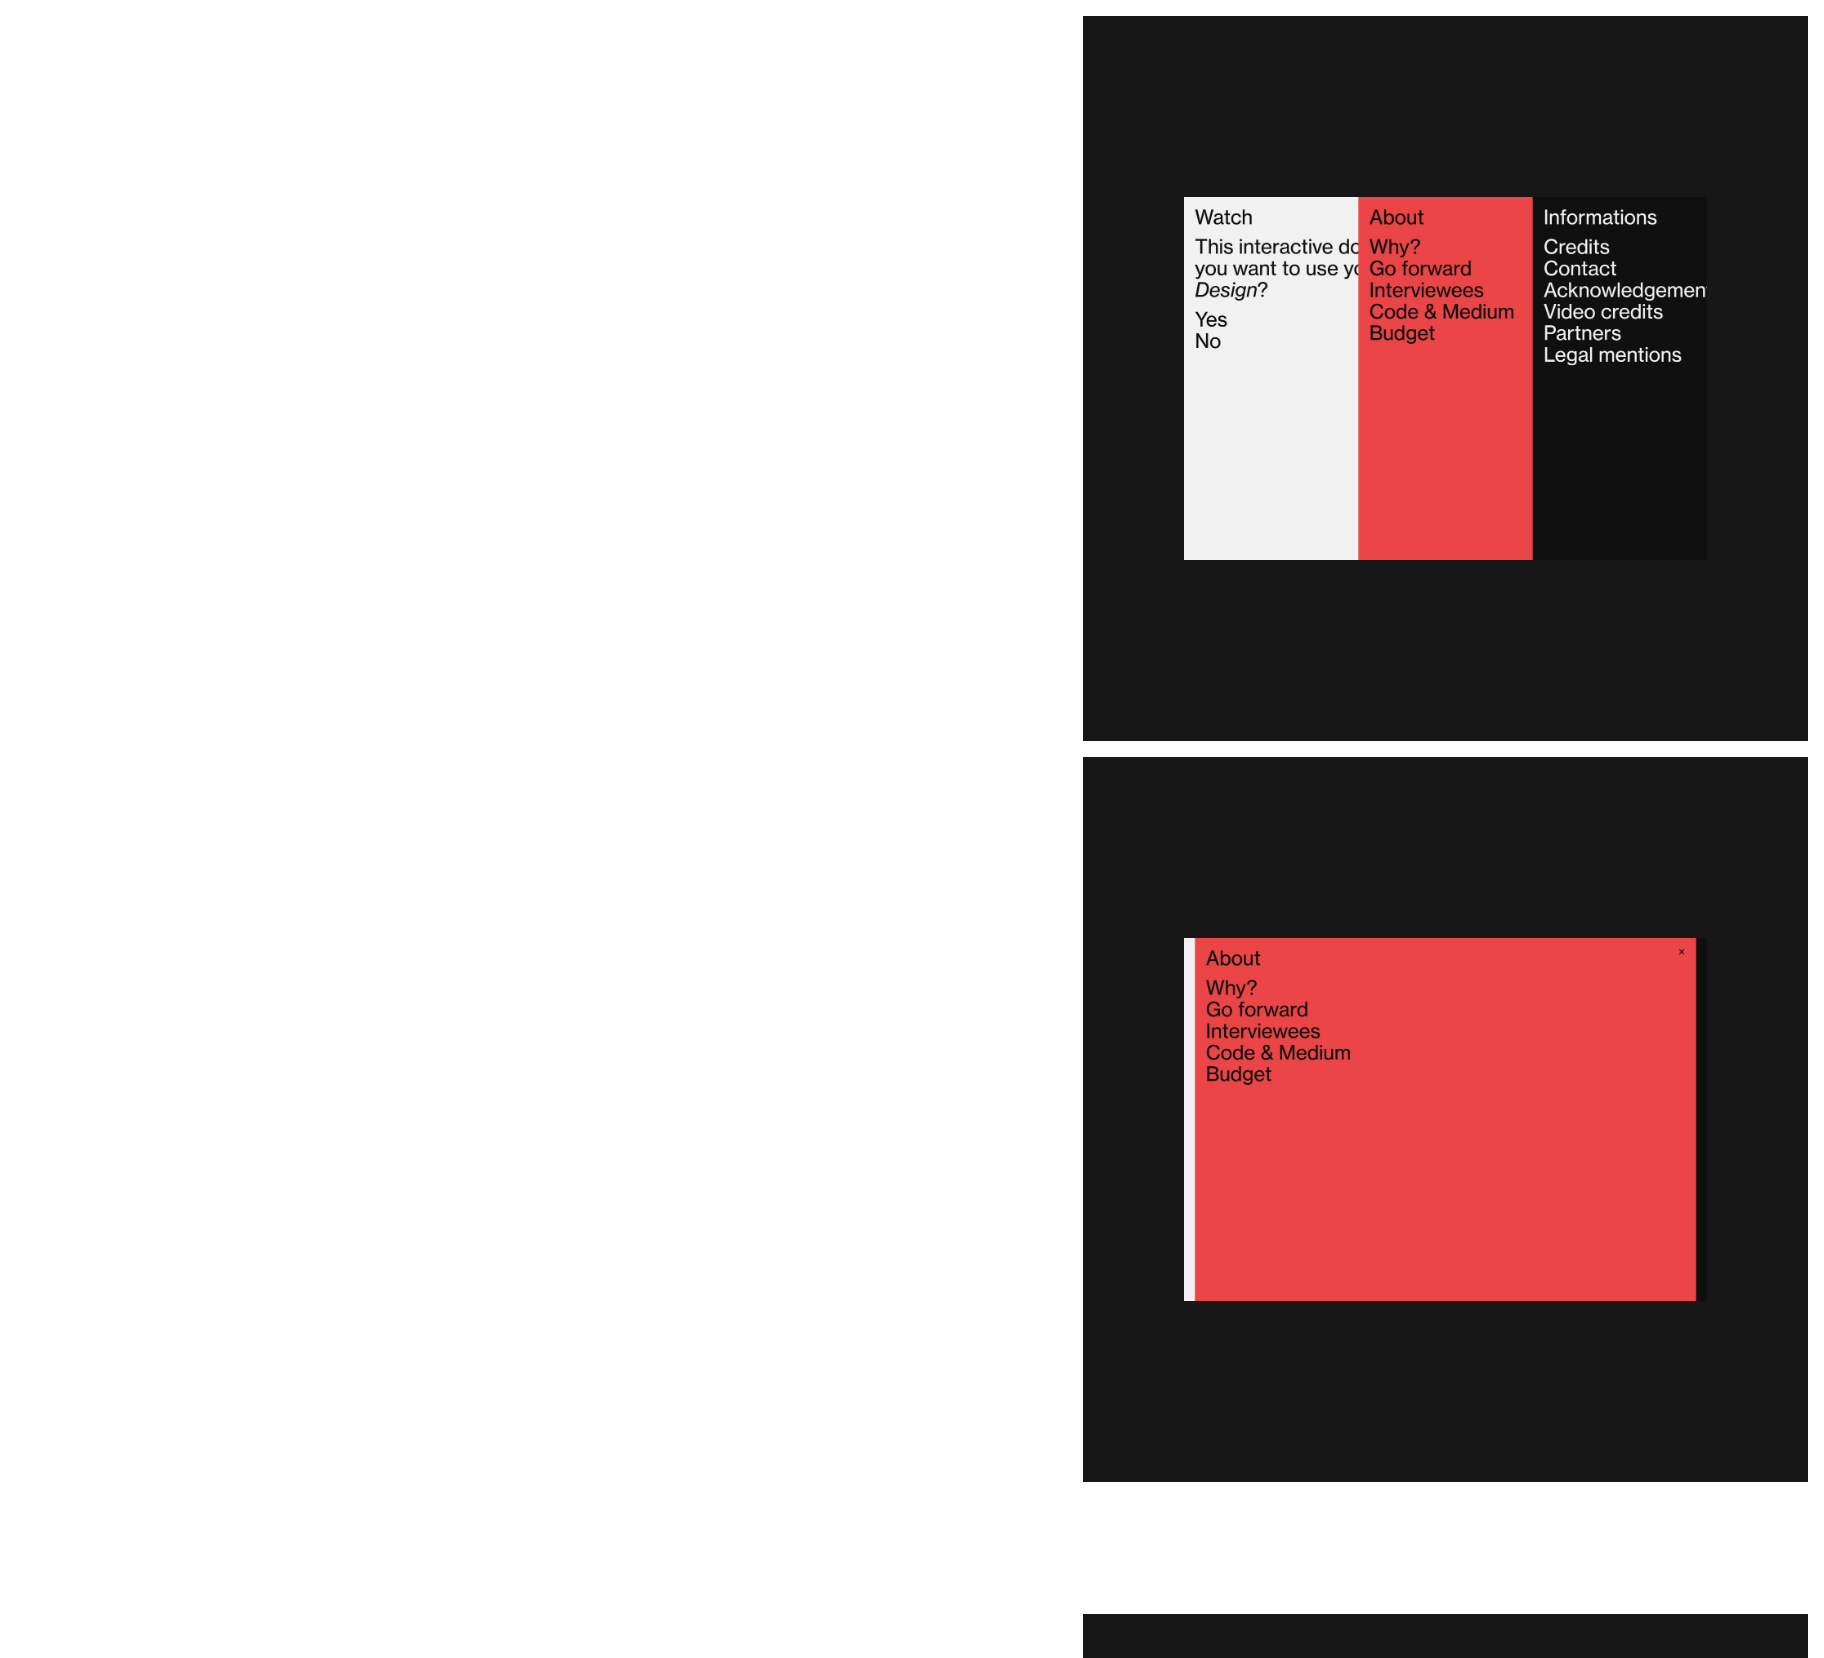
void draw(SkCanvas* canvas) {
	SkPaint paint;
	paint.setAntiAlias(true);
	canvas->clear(0xffffffff);
	paint.setColor(0xff171717);
	canvas->drawRect(SkRect::MakeXYWH(1083, 16, 725, 725), paint);
	canvas->drawImageRect(SkImages::DeferredFromEncodedData(SkData::MakeFromFileName("img1.png")), SkRect::MakeXYWH(1184, 197, 523, 363), SkSamplingOptions());
	canvas->drawRect(SkRect::MakeXYWH(1083, 757, 725, 725), paint);
	canvas->drawImageRect(SkImages::DeferredFromEncodedData(SkData::MakeFromFileName("img2.png")), SkRect::MakeXYWH(1184, 938, 523, 363), SkSamplingOptions());
	canvas->drawRect(SkRect::MakeXYWH(1083, 1614, 725, 44), paint);
}
